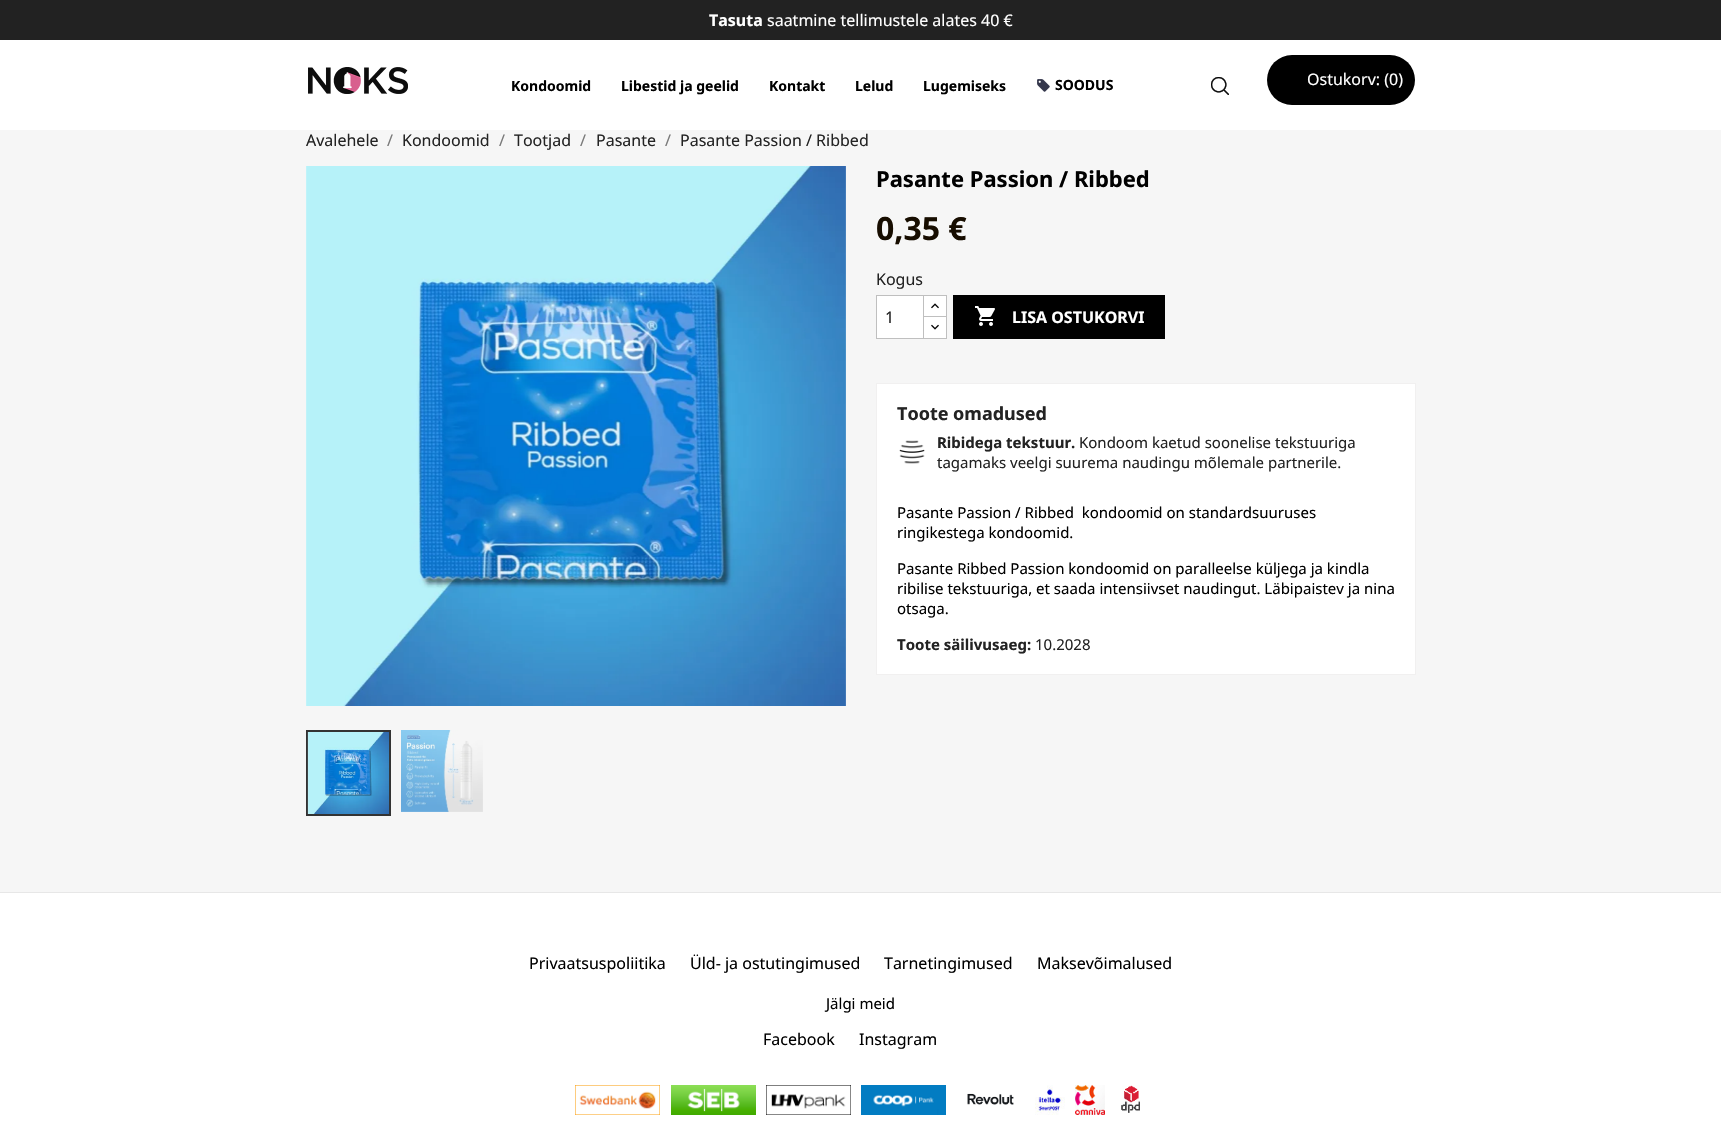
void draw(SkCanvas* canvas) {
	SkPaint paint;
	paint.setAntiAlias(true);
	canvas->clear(0xffffffff);
	paint.setColor(0xff222222);
	canvas->drawRect(SkRect::MakeXYWH(0, 0, 1721, 40), paint);
	SkFont f1(fontMgr->matchFamilyStyle("Noto Sans", SkFontStyle::Bold()), 16);
	f1.setSubpixel(true);
	paint.setColor(0xffffffff);
	canvas->drawString("Tasuta", 709, 26, f1, paint);
	SkFont f2(fontMgr->matchFamilyStyle("Noto Sans", SkFontStyle::Normal()), 16);
	f2.setSubpixel(true);
	canvas->drawString("saatmine tellimustele alates 40 €", 767, 26, f2, paint);
	canvas->drawImageRect(SkImages::DeferredFromEncodedData(SkData::MakeFromFileName("img1.png")), SkRect::MakeXYWH(308, 67, 100, 27), SkSamplingOptions());
	SkFont f3(fontMgr->matchFamilyStyle("Noto Sans", SkFontStyle::Bold()), 14);
	f3.setSubpixel(true);
	paint.setColor(0xff000000);
	canvas->drawString("Kondoomid", 511, 91, f3, paint);
	canvas->drawString("Libestid ja geelid", 621, 91, f3, paint);
	canvas->drawString("Kontakt", 769, 91, f3, paint);
	canvas->drawString("Lelud", 855, 91, f3, paint);
	canvas->drawString("Lugemiseks", 923, 91, f3, paint);
	canvas->drawImageRect(SkImages::DeferredFromEncodedData(SkData::MakeFromFileName("img2.png")), SkRect::MakeXYWH(1037, 79, 13, 13), SkSamplingOptions());
	canvas->drawString("SOODUS", 1055, 90, f3, paint);
	canvas->drawImageRect(SkImages::DeferredFromEncodedData(SkData::MakeFromFileName("img3.png")), SkRect::MakeXYWH(1211, 77, 18, 18), SkSamplingOptions());
	canvas->drawRoundRect(SkRect::MakeXYWH(1267, 55, 148, 50), 25, 25, paint);
	paint.setColor(0xffffffff);
	canvas->drawString("Ostukorv: (0)", 1307, 85, f2, paint);
	paint.setColor(0xfff6f6f6);
	canvas->drawRect(SkRect::MakeXYWH(0, 130, 1721, 762), paint);
	paint.setColor(0xff232323);
	canvas->drawString("Avalehele", 306, 146, f2, paint);
	paint.setColor(0xff7a7a7a);
	canvas->drawString("/", 387, 146, f2, paint);
	paint.setColor(0xff232323);
	canvas->drawString("Kondoomid", 402, 146, f2, paint);
	paint.setColor(0xff7a7a7a);
	canvas->drawString("/", 499, 146, f2, paint);
	paint.setColor(0xff232323);
	canvas->drawString("Tootjad", 514, 146, f2, paint);
	paint.setColor(0xff7a7a7a);
	canvas->drawString("/", 580, 146, f2, paint);
	paint.setColor(0xff232323);
	canvas->drawString("Pasante", 596, 146, f2, paint);
	paint.setColor(0xff7a7a7a);
	canvas->drawString("/", 665, 146, f2, paint);
	paint.setColor(0xff232323);
	canvas->drawString("Pasante Passion / Ribbed", 680, 146, f2, paint);
	canvas->drawImageRect(SkImages::DeferredFromEncodedData(SkData::MakeFromFileName("img4.png")), SkRect::MakeXYWH(306, 166, 540, 540), SkSamplingOptions());
	paint.setStroke(true);
	paint.setStrokeWidth(2);
	paint.setColor(0xff333333);
	canvas->drawRect(SkRect::MakeXYWH(307, 731, 83, 84), paint);
	canvas->drawImageRect(SkImages::DeferredFromEncodedData(SkData::MakeFromFileName("img5.png")), SkRect::MakeXYWH(307, 732, 83, 82), SkSamplingOptions());
	canvas->drawImageRect(SkImages::DeferredFromEncodedData(SkData::MakeFromFileName("img6.png")), SkRect::MakeXYWH(401, 730, 82, 82), SkSamplingOptions());
	SkFont f4(fontMgr->matchFamilyStyle("Noto Sans", SkFontStyle::Bold()), 22);
	f4.setSubpixel(true);
	paint.setStroke(false);
	paint.setColor(0xff000000);
	canvas->drawString("Pasante Passion / Ribbed", 876, 187, f4, paint);
	SkFont f5(fontMgr->matchFamilyStyle("Noto Sans", SkFontStyle::Bold()), 32);
	f5.setSubpixel(true);
	paint.setColor(0xff170d00);
	canvas->drawString("0,35 €", 876, 240, f5, paint);
	paint.setColor(0xff232323);
	canvas->drawString("Kogus", 876, 285, f2, paint);
	paint.setColor(0xffffffff);
	canvas->drawRect(SkRect::MakeXYWH(924, 296, 22, 20), paint);
	paint.setStroke(true);
	paint.setStrokeWidth(1);
	paint.setColor(0xffbfbfbf);
	canvas->drawRect(SkRect::MakeXYWH(923.5, 295.5, 23, 22), paint);
	paint.setStroke(false);
	paint.setColor(0xffffffff);
	canvas->drawRect(SkRect::MakeXYWH(923.5, 316.5, 23, 22), paint);
	paint.setStroke(true);
	paint.setColor(0xffbfbfbf);
	canvas->drawRect(SkRect::MakeXYWH(923.5, 316.5, 23, 22), paint);
	paint.setStroke(false);
	paint.setColor(0xffffffff);
	canvas->drawRect(SkRect::MakeXYWH(876.5, 295.5, 47, 43), paint);
	paint.setStroke(true);
	paint.setColor(0xffbfbfbf);
	canvas->drawRect(SkRect::MakeXYWH(876.5, 295.5, 47, 43), paint);
	paint.setStroke(false);
	paint.setColor(0xff232323);
	canvas->drawString("1", 885, 323, f2, paint);
	canvas->drawImageRect(SkImages::DeferredFromEncodedData(SkData::MakeFromFileName("img7.png")), SkRect::MakeXYWH(931, 303, 8, 6), SkSamplingOptions());
	canvas->drawImageRect(SkImages::DeferredFromEncodedData(SkData::MakeFromFileName("img8.png")), SkRect::MakeXYWH(931, 324, 8, 6), SkSamplingOptions());
	paint.setColor(0xff000000);
	canvas->drawRect(SkRect::MakeXYWH(953, 295, 212, 44), paint);
	canvas->drawImageRect(SkImages::DeferredFromEncodedData(SkData::MakeFromFileName("img9.png")), SkRect::MakeXYWH(975, 306, 20, 20), SkSamplingOptions());
	paint.setColor(0xffffffff);
	canvas->drawString("LISA OSTUKORVI", 1012, 323, f1, paint);
	canvas->drawRect(SkRect::MakeXYWH(876.5, 383.5, 539, 291), paint);
	paint.setStroke(true);
	paint.setColor(0xfff1f0f0);
	canvas->drawRect(SkRect::MakeXYWH(876.5, 383.5, 539, 291), paint);
	SkFont f6(fontMgr->matchFamilyStyle("Noto Sans", SkFontStyle::Bold()), 18);
	f6.setSubpixel(true);
	paint.setStroke(false);
	paint.setColor(0xff232323);
	canvas->drawString("Toote omadused", 897, 420, f6, paint);
	canvas->drawImageRect(SkImages::DeferredFromEncodedData(SkData::MakeFromFileName("img10.png")), SkRect::MakeXYWH(899, 440, 26, 24), SkSamplingOptions());
	SkFont f7(fontMgr->matchFamilyStyle("Noto Sans", SkFontStyle::Bold()), 15);
	f7.setSubpixel(true);
	canvas->drawString("Ribidega tekstuur.", 937, 448, f7, paint);
	SkFont f8(fontMgr->matchFamilyStyle("Noto Sans", SkFontStyle::Normal()), 15);
	f8.setSubpixel(true);
	canvas->drawString("Kondoom kaetud soonelise tekstuuriga", 1079, 448, f8, paint);
	canvas->drawString("tagamaks veelgi suurema naudingu mõlemale partnerile.", 937, 468, f8, paint);
	paint.setColor(0xff000000);
	canvas->drawString("Pasante Passion / Ribbed  kondoomid on standardsuuruses", 897, 518, f8, paint);
	canvas->drawString("ringikestega kondoomid.", 897, 538, f8, paint);
	canvas->drawString("Pasante Ribbed Passion kondoomid on paralleelse küljega ja kindla", 897, 574, f8, paint);
	canvas->drawString("ribilise tekstuuriga, et saada intensiivset naudingut. Läbipaistev ja nina", 897, 594, f8, paint);
	canvas->drawString("otsaga.", 897, 614, f8, paint);
	paint.setColor(0xff232323);
	canvas->drawString("Toote säilivusaeg:", 897, 650, f7, paint);
	canvas->drawString("10.2028", 1035, 650, f8, paint);
	paint.setColor(0xffe7e7e7);
	canvas->drawRect(SkRect::MakeXYWH(0, 892, 1721, 1), paint);
	paint.setColor(0xff000000);
	canvas->drawString("Privaatsuspoliitika", 529, 969, f2, paint);
	canvas->drawString("Üld- ja ostutingimused", 690, 969, f2, paint);
	canvas->drawString("Tarnetingimused", 884, 969, f2, paint);
	canvas->drawString("Maksevõimalused", 1037, 969, f2, paint);
	canvas->drawString("Jälgi meid", 826, 1009, f8, paint);
	canvas->drawString("Facebook", 763, 1045, f2, paint);
	canvas->drawString("Instagram", 859, 1045, f2, paint);
	canvas->drawImageRect(SkImages::DeferredFromEncodedData(SkData::MakeFromFileName("img11.png")), SkRect::MakeXYWH(575, 1085, 85, 30), SkSamplingOptions());
	canvas->drawImageRect(SkImages::DeferredFromEncodedData(SkData::MakeFromFileName("img12.png")), SkRect::MakeXYWH(671, 1085, 85, 30), SkSamplingOptions());
	canvas->drawImageRect(SkImages::DeferredFromEncodedData(SkData::MakeFromFileName("img13.png")), SkRect::MakeXYWH(766, 1085, 85, 30), SkSamplingOptions());
	canvas->drawImageRect(SkImages::DeferredFromEncodedData(SkData::MakeFromFileName("img14.png")), SkRect::MakeXYWH(861, 1085, 85, 30), SkSamplingOptions());
	canvas->drawImageRect(SkImages::DeferredFromEncodedData(SkData::MakeFromFileName("img15.png")), SkRect::MakeXYWH(967, 1093, 47, 12), SkSamplingOptions());
	canvas->drawImageRect(SkImages::DeferredFromEncodedData(SkData::MakeFromFileName("img16.png")), SkRect::MakeXYWH(1035, 1085, 30, 30), SkSamplingOptions());
	canvas->drawImageRect(SkImages::DeferredFromEncodedData(SkData::MakeFromFileName("img17.png")), SkRect::MakeXYWH(1075, 1085, 30, 30), SkSamplingOptions());
	canvas->drawImageRect(SkImages::DeferredFromEncodedData(SkData::MakeFromFileName("img18.png")), SkRect::MakeXYWH(1121, 1085, 19, 28), SkSamplingOptions());
}
